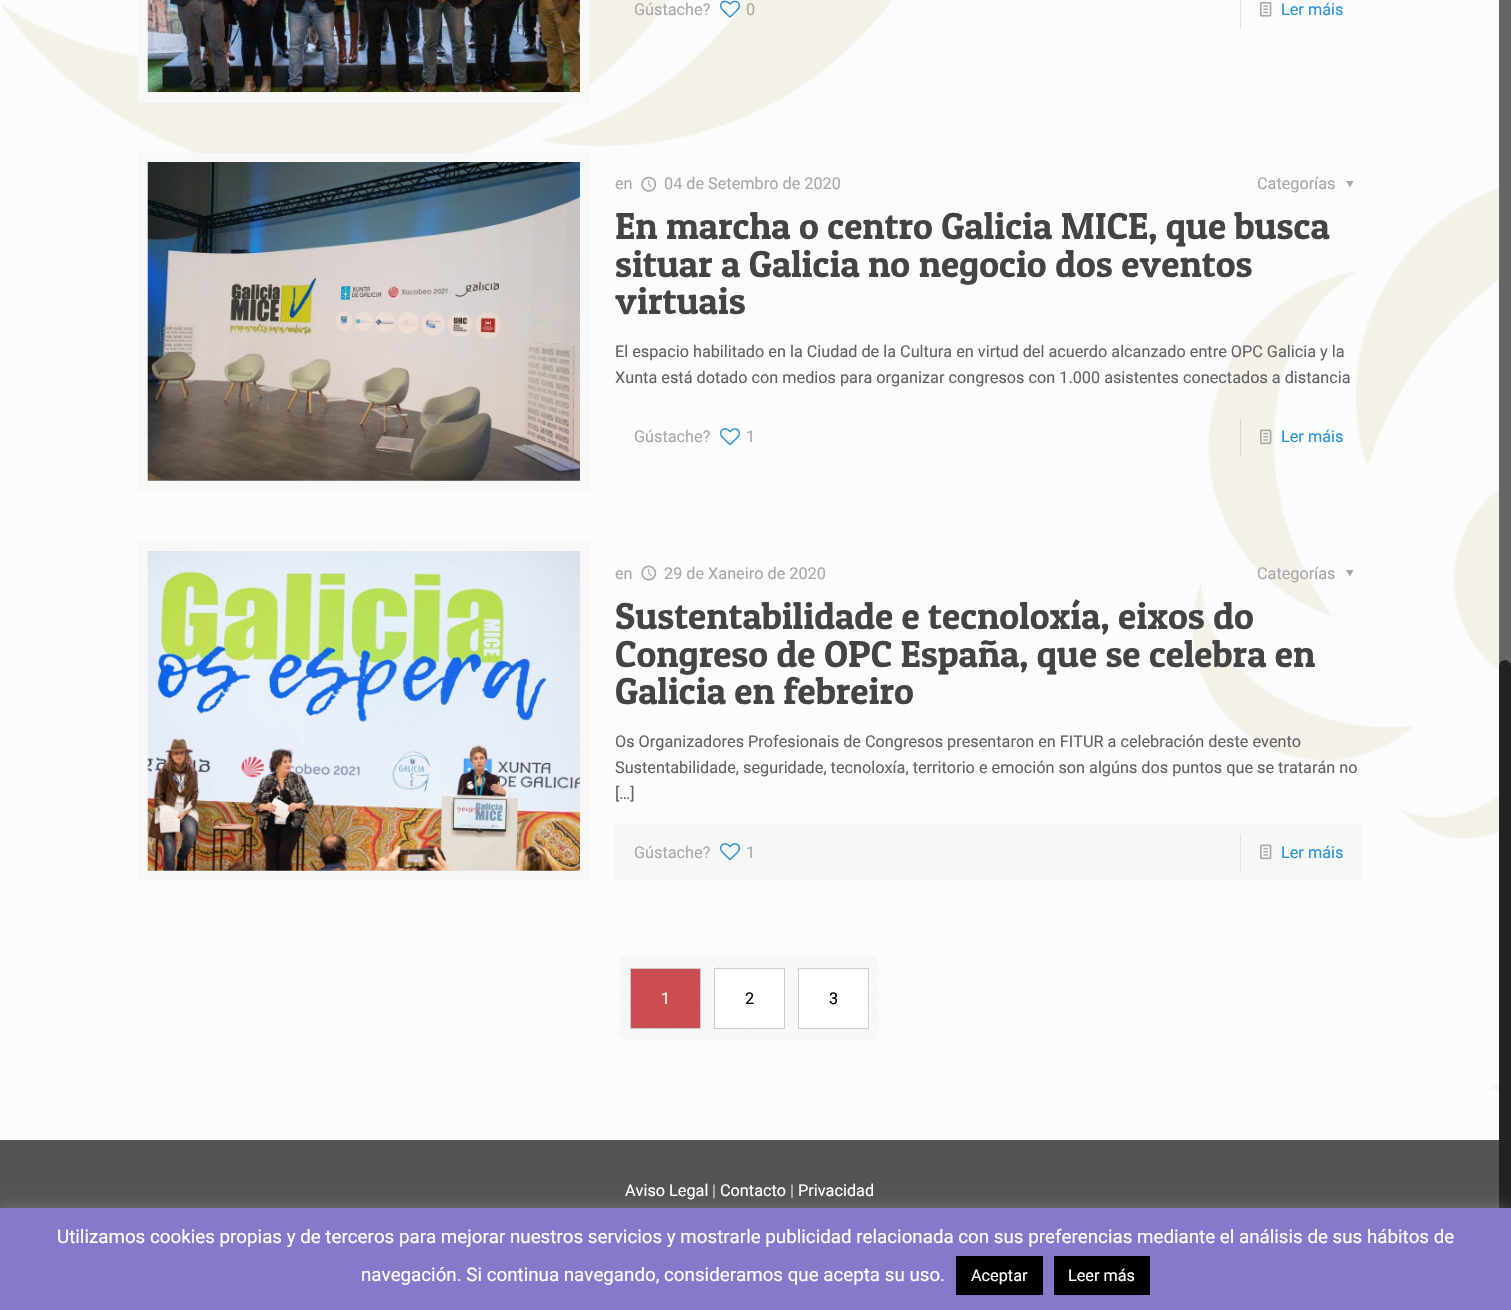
void draw(SkCanvas* canvas) {
	SkPaint paint;
	paint.setAntiAlias(true);
	auto svgPath = [&](const char* data, bool evenOdd = false) {
		SkPath result = *SkParsePath::FromSVGString(data);
		if (evenOdd) result.setFillType(SkPathFillType::kEvenOdd);
		return result;
	};
	canvas->clear(0xfffcfcfc);
	canvas->drawImageRect(SkImages::DeferredFromEncodedData(SkData::MakeFromFileName("img1.png")), SkRect::MakeXYWH(0, 0, 1499, 1090), SkSamplingOptions());
	paint.setStroke(true);
	paint.setStrokeWidth(10);
	paint.setColor(0xfff8f8f8);
	canvas->drawRect(SkRect::MakeXYWH(143, -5, 442, 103), paint);
	canvas->drawImageRect(SkImages::DeferredFromEncodedData(SkData::MakeFromFileName("img2.png")), SkRect::MakeXYWH(147, 0, 433, 92), SkSamplingOptions());
	SkFont f1(fontMgr->matchFamilyStyle("Roboto", SkFontStyle::Normal()), 16.25);
	f1.setSubpixel(true);
	paint.setStroke(false);
	paint.setColor(0xffa8a8a8);
	canvas->drawString("Gústache?", 634, 15, f1, paint);
	canvas->drawImageRect(SkImages::DeferredFromEncodedData(SkData::MakeFromFileName("img3.png")), SkRect::MakeXYWH(720, 0, 20, 18), SkSamplingOptions());
	canvas->drawString("0", 746, 15, f1, paint);
	paint.setColor(0xffe3e3e3);
	canvas->drawRect(SkRect::MakeXYWH(1240, 0, 1, 29), paint);
	canvas->drawImageRect(SkImages::DeferredFromEncodedData(SkData::MakeFromFileName("img4.png")), SkRect::MakeXYWH(1260, 2, 12, 15), SkSamplingOptions());
	paint.setColor(0xff2991d6);
	canvas->drawString("Ler máis", 1281, 15, f1, paint);
	paint.setStroke(true);
	paint.setColor(0xfff8f8f8);
	canvas->drawRect(SkRect::MakeXYWH(143, 158, 442, 328), paint);
	canvas->drawImageRect(SkImages::DeferredFromEncodedData(SkData::MakeFromFileName("img5.png")), SkRect::MakeXYWH(147, 162, 433, 319), SkSamplingOptions());
	paint.setStroke(false);
	paint.setColor(0xffa8a8a8);
	canvas->drawString("en", 615, 189, f1, paint);
	canvas->drawImageRect(SkImages::DeferredFromEncodedData(SkData::MakeFromFileName("img6.png")), SkRect::MakeXYWH(641, 176, 16, 16), SkSamplingOptions());
	canvas->drawString("04 de Setembro de 2020", 664, 189, f1, paint);
	canvas->drawString("Categorías", 1257, 189, f1, paint);
	canvas->drawPath(svgPath("M1353.5 181L1350 187.5L1346 181Z"), paint);
	SkFont f2(fontMgr->matchFamilyStyle("Patua One", SkFontStyle::Normal()), 37.5);
	f2.setSubpixel(true);
	paint.setColor(0xff444444);
	canvas->drawString("En marcha o centro Galicia MICE, que busca", 615, 239, f2, paint);
	canvas->drawString("situar a Galicia no negocio dos eventos", 615, 277, f2, paint);
	canvas->drawString("virtuais", 615, 314, f2, paint);
	paint.setColor(0xff626262);
	canvas->drawString("El espacio habilitado en la Ciudad de la Cultura en virtud del acuerdo alcanzado entre OPC Galicia y la", 615, 357, f1, paint);
	canvas->drawString("Xunta está dotado con medios para organizar congresos con 1.000 asistentes conectados a distancia", 615, 383, f1, paint);
	paint.setColor(0xffa8a8a8);
	canvas->drawString("Gústache?", 634, 442, f1, paint);
	canvas->drawImageRect(SkImages::DeferredFromEncodedData(SkData::MakeFromFileName("img7.png")), SkRect::MakeXYWH(720, 428, 20, 18), SkSamplingOptions());
	canvas->drawString("1", 746, 442, f1, paint);
	paint.setColor(0xffdcd9d2);
	canvas->drawRect(SkRect::MakeXYWH(1240, 419, 1, 37), paint);
	canvas->drawImageRect(SkImages::DeferredFromEncodedData(SkData::MakeFromFileName("img8.png")), SkRect::MakeXYWH(1260, 429, 12, 16), SkSamplingOptions());
	paint.setColor(0xff2991d6);
	canvas->drawString("Ler máis", 1281, 442, f1, paint);
	paint.setStroke(true);
	paint.setColor(0xfff8f8f8);
	canvas->drawRect(SkRect::MakeXYWH(143, 546, 442, 330), paint);
	canvas->drawImageRect(SkImages::DeferredFromEncodedData(SkData::MakeFromFileName("img9.png")), SkRect::MakeXYWH(147, 551, 433, 320), SkSamplingOptions());
	paint.setStroke(false);
	paint.setColor(0xffa8a8a8);
	canvas->drawString("en", 615, 579, f1, paint);
	canvas->drawImageRect(SkImages::DeferredFromEncodedData(SkData::MakeFromFileName("img10.png")), SkRect::MakeXYWH(641, 565, 16, 16), SkSamplingOptions());
	canvas->drawString("29 de Xaneiro de 2020", 664, 579, f1, paint);
	canvas->drawString("Categorías", 1257, 579, f1, paint);
	canvas->drawPath(svgPath("M1353.5 570L1350 576.5L1346 570Z"), paint);
	paint.setColor(0xff444444);
	canvas->drawString("Sustentabilidade e tecnoloxía, eixos do", 615, 629, f2, paint);
	canvas->drawString("Congreso de OPC España, que se celebra en", 615, 667, f2, paint);
	canvas->drawString("Galicia en febreiro", 615, 704, f2, paint);
	paint.setColor(0xff626262);
	canvas->drawString("Os Organizadores Profesionais de Congresos presentaron en FITUR a celebración deste evento", 615, 747, f1, paint);
	canvas->drawString("Sustentabilidade, seguridade, tecnoloxía, territorio e emoción son algúns dos puntos que se tratarán no", 615, 773, f1, paint);
	canvas->drawString("[…]", 615, 799, f1, paint);
	paint.setColor(0xfff7f7f7);
	canvas->drawRect(SkRect::MakeXYWH(615, 825, 746, 55), paint);
	paint.setColor(0xffa8a8a8);
	canvas->drawString("Gústache?", 634, 858, f1, paint);
	canvas->drawImageRect(SkImages::DeferredFromEncodedData(SkData::MakeFromFileName("img11.png")), SkRect::MakeXYWH(720, 843, 20, 18), SkSamplingOptions());
	canvas->drawString("1", 746, 858, f1, paint);
	paint.setColor(0xffe3e3e3);
	canvas->drawRect(SkRect::MakeXYWH(1240, 834, 1, 37), paint);
	canvas->drawImageRect(SkImages::DeferredFromEncodedData(SkData::MakeFromFileName("img12.png")), SkRect::MakeXYWH(1260, 844, 12, 16), SkSamplingOptions());
	paint.setColor(0xff2991d6);
	canvas->drawString("Ler máis", 1281, 858, f1, paint);
	paint.setColor(0xfff8f8f8);
	canvas->drawRoundRect(SkRect::MakeXYWH(620, 956, 259, 84), 6, 6, paint);
	canvas->drawImageRect(SkImages::DeferredFromEncodedData(SkData::MakeFromFileName("img13.png")), SkRect::MakeXYWH(620, 956, 256, 82), SkSamplingOptions());
	paint.setColor(0xffcc4d50);
	canvas->drawRect(SkRect::MakeXYWH(630.5, 968.5, 70, 60), paint);
	paint.setStroke(true);
	paint.setStrokeWidth(1);
	paint.setColor(0xffcccccc);
	canvas->drawRect(SkRect::MakeXYWH(630.5, 968.5, 70, 60), paint);
	paint.setStroke(false);
	paint.setColor(0xffffffff);
	canvas->drawString("1", 661, 1004, f1, paint);
	canvas->drawRect(SkRect::MakeXYWH(714.5, 968.5, 70, 60), paint);
	paint.setStroke(true);
	paint.setColor(0xffcccccc);
	canvas->drawRect(SkRect::MakeXYWH(714.5, 968.5, 70, 60), paint);
	paint.setStroke(false);
	paint.setColor(0xff000000);
	canvas->drawString("2", 745, 1004, f1, paint);
	paint.setColor(0xffffffff);
	canvas->drawRect(SkRect::MakeXYWH(798.5, 968.5, 70, 60), paint);
	paint.setStroke(true);
	paint.setColor(0xffcccccc);
	canvas->drawRect(SkRect::MakeXYWH(798.5, 968.5, 70, 60), paint);
	paint.setStroke(false);
	paint.setColor(0xff000000);
	canvas->drawString("3", 829, 1004, f1, paint);
	paint.setColor(0xff545454);
	canvas->drawRect(SkRect::MakeXYWH(0, 1140, 1499, 68), paint);
	paint.setColor(0xffffffff);
	canvas->drawString("Aviso Legal", 625, 1196, f1, paint);
	paint.setColor(0xffcccccc);
	canvas->drawString("|", 712, 1196, f1, paint);
	paint.setColor(0xffffffff);
	canvas->drawString("Contacto", 720, 1196, f1, paint);
	paint.setColor(0xffcccccc);
	canvas->drawString("|", 790, 1196, f1, paint);
	paint.setColor(0xffffffff);
	canvas->drawString("Privacidad", 798, 1196, f1, paint);
	paint.setColor(0xff666666);
	canvas->drawRect(SkRect::MakeXYWH(1499, 0, 12, 666), paint);
	paint.setColor(0xff222222);
	canvas->drawRoundRect(SkRect::MakeXYWH(1499, 660, 12, 571), 6, 6, paint);
	paint.setColor(0x4dacabab);
	paint.setMaskFilter(SkMaskFilter::MakeBlur(kNormal_SkBlurStyle, 6));
	canvas->drawRect(SkRect::MakeXYWH(0, 1206, 1511, 103), paint);
	paint.setMaskFilter(nullptr);
	paint.setColor(0xff8678cb);
	canvas->drawRect(SkRect::MakeXYWH(0, 1208, 1511, 102), paint);
	SkFont f3(fontMgr->matchFamilyStyle("Roboto", SkFontStyle::Normal()), 18.75);
	f3.setSubpixel(true);
	paint.setColor(0xffffffff);
	canvas->drawString("Utilizamos cookies propias y de terceros para mejorar nuestros servicios y mostrarle publicidad relacionada con sus preferencias mediante el análisis de sus hábitos de", 57, 1243, f3, paint);
	canvas->drawString("navegación. Si continua navegando, consideramos que acepta su uso.", 361, 1281, f3, paint);
	paint.setColor(0xff000000);
	canvas->drawRect(SkRect::MakeXYWH(956, 1256, 87, 39), paint);
	paint.setColor(0xffffffff);
	canvas->drawString("Aceptar", 971, 1281, f1, paint);
	paint.setColor(0xff000000);
	canvas->drawRect(SkRect::MakeXYWH(1054, 1256, 96, 39), paint);
	paint.setColor(0xffffffff);
	canvas->drawString("Leer más", 1068, 1281, f1, paint);
}
